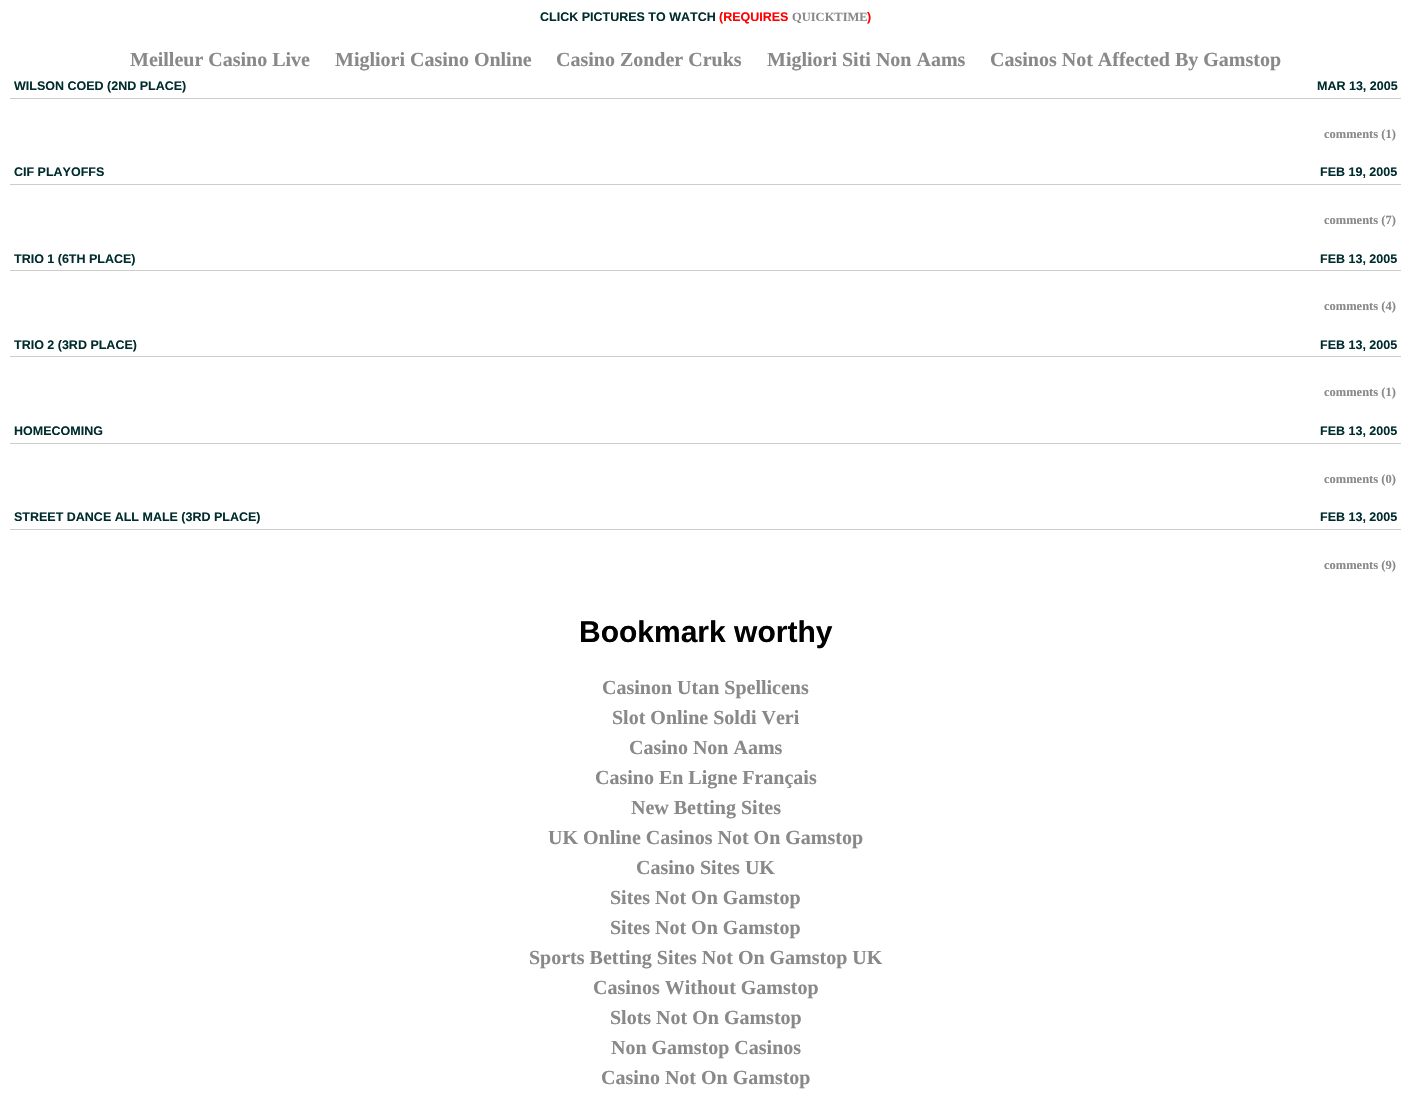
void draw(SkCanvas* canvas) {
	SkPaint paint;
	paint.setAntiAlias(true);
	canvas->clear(0xffffffff);
	SkFont f1(fontMgr->matchFamilyStyle("Liberation Sans", SkFontStyle::Bold()), 12.5);
	f1.setSubpixel(true);
	paint.setColor(0xff002c2e);
	canvas->drawString("CLICK PICTURES TO WATCH", 540, 21, f1, paint);
	paint.setColor(0xffff0000);
	canvas->drawString("(REQUIRES", 719, 21, f1, paint);
	SkFont f2(fontMgr->matchFamilyStyle("Liberation Serif", SkFontStyle::Bold()), 12.5);
	f2.setSubpixel(true);
	paint.setColor(0xff898989);
	canvas->drawString("QUICKTIME", 792, 21, f2, paint);
	paint.setColor(0xffff0000);
	canvas->drawString(")", 867, 21, f1, paint);
	SkFont f3(fontMgr->matchFamilyStyle("Liberation Serif", SkFontStyle::Bold()), 20);
	f3.setSubpixel(true);
	paint.setColor(0xff898989);
	canvas->drawString("Meilleur Casino Live", 130, 66, f3, paint);
	canvas->drawString("Migliori Casino Online", 335, 66, f3, paint);
	canvas->drawString("Casino Zonder Cruks", 556, 66, f3, paint);
	canvas->drawString("Migliori Siti Non Aams", 767, 66, f3, paint);
	canvas->drawString("Casinos Not Affected By Gamstop", 990, 66, f3, paint);
	paint.setColor(0xffcccccc);
	canvas->drawRect(SkRect::MakeXYWH(10, 98, 1391, 1), paint);
	paint.setColor(0xff002c2e);
	canvas->drawString("WILSON COED (2ND PLACE)", 14, 90, f1, paint);
	canvas->drawString("MAR 13, 2005", 1317, 90, f1, paint);
	paint.setColor(0xff898989);
	canvas->drawString("comments (1)", 1324, 138, f2, paint);
	paint.setColor(0xffcccccc);
	canvas->drawRect(SkRect::MakeXYWH(10, 184, 1391, 1), paint);
	paint.setColor(0xff002c2e);
	canvas->drawString("CIF PLAYOFFS", 14, 176, f1, paint);
	canvas->drawString("FEB 19, 2005", 1320, 176, f1, paint);
	paint.setColor(0xff898989);
	canvas->drawString("comments (7)", 1324, 224, f2, paint);
	paint.setColor(0xffcccccc);
	canvas->drawRect(SkRect::MakeXYWH(10, 270, 1391, 1), paint);
	paint.setColor(0xff002c2e);
	canvas->drawString("TRIO 1 (6TH PLACE)", 14, 263, f1, paint);
	canvas->drawString("FEB 13, 2005", 1320, 263, f1, paint);
	paint.setColor(0xff898989);
	canvas->drawString("comments (4)", 1324, 310, f2, paint);
	paint.setColor(0xffcccccc);
	canvas->drawRect(SkRect::MakeXYWH(10, 356, 1391, 1), paint);
	paint.setColor(0xff002c2e);
	canvas->drawString("TRIO 2 (3RD PLACE)", 14, 349, f1, paint);
	canvas->drawString("FEB 13, 2005", 1320, 349, f1, paint);
	paint.setColor(0xff898989);
	canvas->drawString("comments (1)", 1324, 396, f2, paint);
	paint.setColor(0xffcccccc);
	canvas->drawRect(SkRect::MakeXYWH(10, 443, 1391, 1), paint);
	paint.setColor(0xff002c2e);
	canvas->drawString("HOMECOMING", 14, 435, f1, paint);
	canvas->drawString("FEB 13, 2005", 1320, 435, f1, paint);
	paint.setColor(0xff898989);
	canvas->drawString("comments (0)", 1324, 483, f2, paint);
	paint.setColor(0xffcccccc);
	canvas->drawRect(SkRect::MakeXYWH(10, 529, 1391, 1), paint);
	paint.setColor(0xff002c2e);
	canvas->drawString("STREET DANCE ALL MALE (3RD PLACE)", 14, 521, f1, paint);
	canvas->drawString("FEB 13, 2005", 1320, 521, f1, paint);
	paint.setColor(0xff898989);
	canvas->drawString("comments (9)", 1324, 569, f2, paint);
	SkFont f4(fontMgr->matchFamilyStyle("Liberation Sans", SkFontStyle::Bold()), 30);
	f4.setSubpixel(true);
	paint.setColor(0xff000000);
	canvas->drawString("Bookmark worthy", 579, 642, f4, paint);
	paint.setColor(0xff898989);
	canvas->drawString("Casinon Utan Spellicens", 602, 694, f3, paint);
	canvas->drawString("Slot Online Soldi Veri", 612, 724, f3, paint);
	canvas->drawString("Casino Non Aams", 629, 754, f3, paint);
	canvas->drawString("Casino En Ligne Français", 595, 784, f3, paint);
	canvas->drawString("New Betting Sites", 631, 814, f3, paint);
	canvas->drawString("UK Online Casinos Not On Gamstop", 548, 844, f3, paint);
	canvas->drawString("Casino Sites UK", 636, 874, f3, paint);
	canvas->drawString("Sites Not On Gamstop", 610, 904, f3, paint);
	canvas->drawString("Sites Not On Gamstop", 610, 934, f3, paint);
	canvas->drawString("Sports Betting Sites Not On Gamstop UK", 529, 964, f3, paint);
	canvas->drawString("Casinos Without Gamstop", 593, 994, f3, paint);
	canvas->drawString("Slots Not On Gamstop", 610, 1024, f3, paint);
	canvas->drawString("Non Gamstop Casinos", 611, 1054, f3, paint);
	canvas->drawString("Casino Not On Gamstop", 601, 1084, f3, paint);
}
